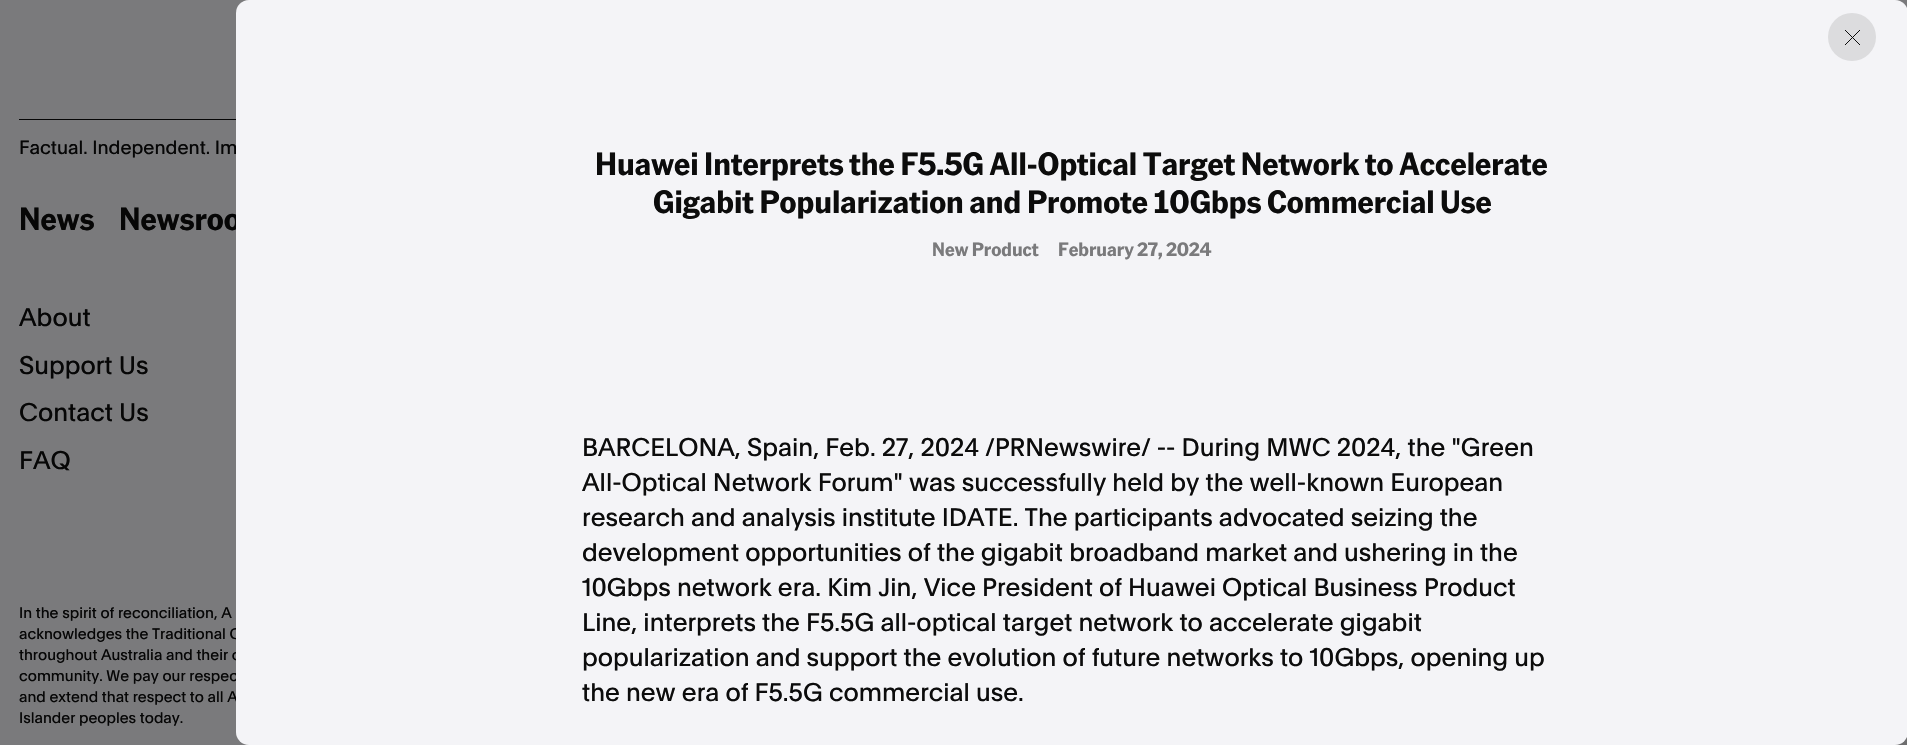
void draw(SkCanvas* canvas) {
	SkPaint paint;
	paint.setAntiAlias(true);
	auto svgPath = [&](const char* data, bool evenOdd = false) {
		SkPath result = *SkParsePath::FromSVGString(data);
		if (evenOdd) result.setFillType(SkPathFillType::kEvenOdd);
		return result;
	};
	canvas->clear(0xff7a7a7c);
	paint.setColor(0xff060606);
	canvas->drawRect(SkRect::MakeXYWH(19, 119, 217, 1), paint);
	SkFont f1(fontMgr->matchFamilyStyle("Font", SkFontStyle::Normal()), 18.75);
	f1.setSubpixel(true);
	canvas->drawString("Factual. Independent. Im", 19, 154, f1, paint);
	SkFont f2(fontMgr->matchFamilyStyle("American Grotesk", SkFontStyle::Bold()), 31.25);
	f2.setSubpixel(true);
	canvas->drawString("News", 19, 230, f2, paint);
	canvas->drawString("Newsroo", 119, 230, f2, paint);
	SkFont f3(fontMgr->matchFamilyStyle("Font", SkFontStyle::Normal()), 25);
	f3.setSubpixel(true);
	canvas->drawString("About", 19, 326, f3, paint);
	canvas->drawString("Support Us", 19, 374, f3, paint);
	canvas->drawString("Contact Us", 19, 421, f3, paint);
	canvas->drawString("FAQ", 19, 469, f3, paint);
	SkFont f4(fontMgr->matchFamilyStyle("Font", SkFontStyle::Normal()), 15);
	f4.setSubpixel(true);
	canvas->drawString("In the spirit of reconciliation, A", 19, 618, f4, paint);
	canvas->drawString("acknowledges the Traditional C", 19, 639, f4, paint);
	canvas->drawString("throughout Australia and their c", 19, 660, f4, paint);
	canvas->drawString("community. We pay our respec", 19, 681, f4, paint);
	canvas->drawString("and extend that respect to all A", 19, 702, f4, paint);
	canvas->drawString("Islander peoples today.", 19, 723, f4, paint);
	paint.setColor(0xff6e6e6f);
	canvas->drawRect(SkRect::MakeXYWH(1895, 737, 12, 8), paint);
	paint.setColor(0xfff4f4f7);
	canvas->drawRoundRect(SkRect::MakeXYWH(236, 0, 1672, 745), 13, 13, paint);
	paint.setColor(0xffdcdcde);
	canvas->drawCircle(1852, 37, 24, paint);
	paint.setStroke(true);
	paint.setStrokeWidth(1);
	paint.setStrokeJoin(SkPaint::kRound_Join);
	paint.setColor(0xff0c0c0c);
	canvas->drawPath(svgPath("M1860 30L1845 45M1860 45L1845 30"), paint);
	paint.setStroke(false);
	canvas->drawString("Huawei Interprets the F5.5G All-Optical Target Network to Accelerate", 595, 175, f2, paint);
	canvas->drawString("Gigabit Popularization and Promote 10Gbps Commercial Use", 653, 213, f2, paint);
	SkFont f5(fontMgr->matchFamilyStyle("American Grotesk", SkFontStyle::Bold()), 18.75);
	f5.setSubpixel(true);
	paint.setColor(0xff7a7a7c);
	canvas->drawString("New Product", 932, 256, f5, paint);
	canvas->drawString("February 27, 2024", 1058, 256, f5, paint);
	paint.setColor(0xff0c0c0c);
	canvas->drawString("BARCELONA, Spain, Feb. 27, 2024 /PRNewswire/ -- During MWC 2024, the \"Green", 582, 456, f3, paint);
	canvas->drawString("All-Optical Network Forum\" was successfully held by the well-known European", 582, 491, f3, paint);
	canvas->drawString("research and analysis institute IDATE. The participants advocated seizing the", 582, 526, f3, paint);
	canvas->drawString("development opportunities of the gigabit broadband market and ushering in the", 582, 561, f3, paint);
	canvas->drawString("10Gbps network era. Kim Jin, Vice President of Huawei Optical Business Product", 582, 596, f3, paint);
	canvas->drawString("Line, interprets the F5.5G all-optical target network to accelerate gigabit", 582, 631, f3, paint);
	canvas->drawString("popularization and support the evolution of future networks to 10Gbps, opening up", 582, 666, f3, paint);
	canvas->drawString("the new era of F5.5G commercial use.", 582, 701, f3, paint);
}
